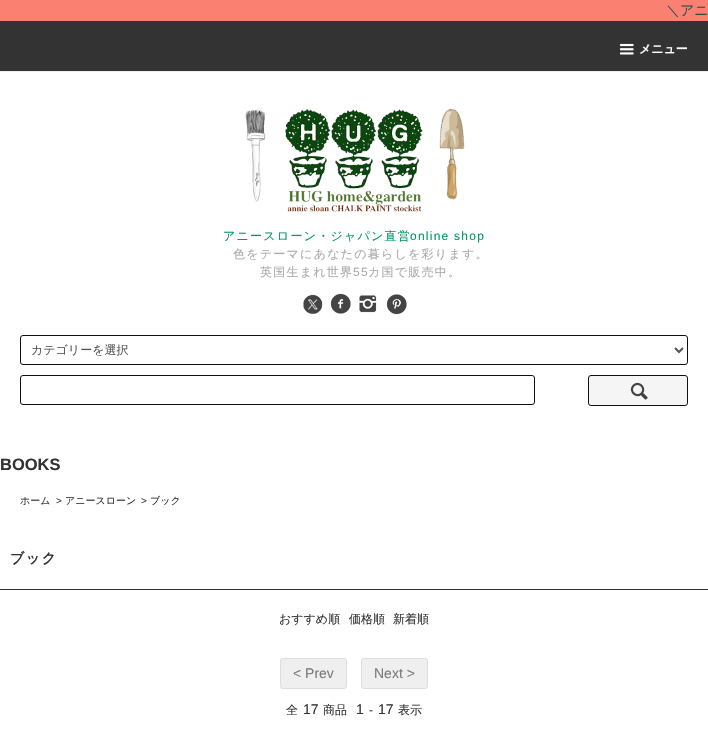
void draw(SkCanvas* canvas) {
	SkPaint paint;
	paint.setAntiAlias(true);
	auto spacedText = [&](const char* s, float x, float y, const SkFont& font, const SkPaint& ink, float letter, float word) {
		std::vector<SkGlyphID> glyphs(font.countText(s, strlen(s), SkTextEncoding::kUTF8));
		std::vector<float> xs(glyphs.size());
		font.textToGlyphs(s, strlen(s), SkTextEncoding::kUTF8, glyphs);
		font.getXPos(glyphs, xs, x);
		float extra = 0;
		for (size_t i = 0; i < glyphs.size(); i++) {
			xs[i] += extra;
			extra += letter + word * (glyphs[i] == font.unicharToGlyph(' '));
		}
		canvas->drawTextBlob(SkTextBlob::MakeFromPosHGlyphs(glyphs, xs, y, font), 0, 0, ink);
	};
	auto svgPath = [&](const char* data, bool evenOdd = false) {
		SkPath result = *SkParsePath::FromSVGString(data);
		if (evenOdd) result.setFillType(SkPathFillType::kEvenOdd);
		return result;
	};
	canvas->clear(0xffffffff);
	paint.setColor(0xfffa8072);
	canvas->drawRect(SkRect::MakeXYWH(0, 0, 708, 21), paint);
	SkFont f1(fontMgr->matchFamilyStyle("WenQuanYi Zen Hei", SkFontStyle(500, SkFontStyle::kNormal_Width, SkFontStyle::kUpright_Slant)), 14);
	f1.setSubpixel(true);
	paint.setColor(0xff2f4f4f);
	canvas->drawString("＼アニ", 666, 15, f1, paint);
	paint.setColor(0xff333333);
	canvas->drawRect(SkRect::MakeXYWH(0, 21, 708, 50), paint);
	paint.setColor(0xffeeeeee);
	canvas->drawRect(SkRect::MakeXYWH(0, 71, 708, 1), paint);
	canvas->drawImageRect(SkImages::DeferredFromEncodedData(SkData::MakeFromFileName("img1.png")), SkRect::MakeXYWH(619, 43, 15, 12), SkSamplingOptions());
	SkFont f2(fontMgr->matchFamilyStyle("WenQuanYi Zen Hei", SkFontStyle::Bold()), 12);
	f2.setSubpixel(true);
	paint.setColor(0xffffffff);
	canvas->drawString("メニュー", 639, 53, f2, paint);
	canvas->drawImageRect(SkImages::DeferredFromEncodedData(SkData::MakeFromFileName("img2.png")), SkRect::MakeXYWH(245, 109, 220, 103), SkSamplingOptions());
	SkFont f3(fontMgr->matchFamilyStyle("WenQuanYi Zen Hei", SkFontStyle(500, SkFontStyle::kNormal_Width, SkFontStyle::kUpright_Slant)), 12);
	f3.setSubpixel(true);
	paint.setColor(0xff009966);
	spacedText("アニースローン・ジャパン直営", 223, 240, f3, paint, 1.25, 0);
	SkFont f4(fontMgr->matchFamilyStyle("Liberation Sans", SkFontStyle::Normal()), 12);
	f4.setSubpixel(true);
	spacedText("online shop", 410, 240, f4, paint, 1.25, 0);
	paint.setColor(0xffaaaaaa);
	spacedText("色をテーマにあなたの暮らしを彩ります。", 233, 258, f3, paint, 1.25, 0);
	spacedText("英国生まれ世界", 260, 276, f3, paint, 1.25, 0);
	spacedText("55", 353, 276, f4, paint, 1.25, 0);
	spacedText("カ国で販売中。", 368, 276, f3, paint, 1.25, 0);
	canvas->drawImageRect(SkImages::DeferredFromEncodedData(SkData::MakeFromFileName("img3.png")), SkRect::MakeXYWH(303, 294, 20, 20), SkSamplingOptions());
	canvas->drawImageRect(SkImages::DeferredFromEncodedData(SkData::MakeFromFileName("img4.png")), SkRect::MakeXYWH(330, 293, 21, 21), SkSamplingOptions());
	canvas->drawImageRect(SkImages::DeferredFromEncodedData(SkData::MakeFromFileName("img5.png")), SkRect::MakeXYWH(359, 295, 18, 18), SkSamplingOptions());
	canvas->drawImageRect(SkImages::DeferredFromEncodedData(SkData::MakeFromFileName("img6.png")), SkRect::MakeXYWH(386, 294, 21, 21), SkSamplingOptions());
	paint.setStroke(true);
	paint.setStrokeWidth(1);
	paint.setColor(0xff101010);
	canvas->drawRoundRect(SkRect::MakeXYWH(20.5, 335.5, 667, 29), 2.5, 2.5, paint);
	paint.setStrokeWidth(2);
	paint.setColor(0xff555555);
	canvas->drawPath(svgPath("M675 348L679 352L683 348"), paint);
	paint.setStroke(false);
	canvas->drawString("カテゴリーを選択", 31, 354, f3, paint);
	paint.setStroke(true);
	paint.setStrokeWidth(1);
	paint.setColor(0xff101010);
	canvas->drawRoundRect(SkRect::MakeXYWH(20.5, 375.5, 514, 29), 2.5, 2.5, paint);
	paint.setStroke(false);
	paint.setColor(0xfff5f5f5);
	canvas->drawRoundRect(SkRect::MakeXYWH(588.5, 375.5, 99, 30), 2.5, 2.5, paint);
	paint.setStroke(true);
	paint.setColor(0xff101010);
	canvas->drawRoundRect(SkRect::MakeXYWH(588.5, 375.5, 99, 30), 2.5, 2.5, paint);
	canvas->drawImageRect(SkImages::DeferredFromEncodedData(SkData::MakeFromFileName("img7.png")), SkRect::MakeXYWH(630, 382, 18, 18), SkSamplingOptions());
	SkFont f5(fontMgr->matchFamilyStyle("Liberation Sans", SkFontStyle::Bold()), 16.5);
	f5.setSubpixel(true);
	paint.setStroke(false);
	paint.setColor(0xff333333);
	canvas->drawString("BOOKS", 0, 470, f5, paint);
	SkFont f6(fontMgr->matchFamilyStyle("WenQuanYi Zen Hei", SkFontStyle(500, SkFontStyle::kNormal_Width, SkFontStyle::kUpright_Slant)), 10);
	f6.setSubpixel(true);
	canvas->drawString("ホーム", 20, 504, f6, paint);
	SkFont f7(fontMgr->matchFamilyStyle("Liberation Sans", SkFontStyle::Normal()), 10);
	f7.setSubpixel(true);
	canvas->drawString(">", 56, 504, f7, paint);
	canvas->drawString("アニースローン", 65, 504, f6, paint);
	canvas->drawString(">", 141, 504, f7, paint);
	canvas->drawString("ブック", 150, 504, f6, paint);
	canvas->drawRect(SkRect::MakeXYWH(0, 589, 708, 1), paint);
	SkFont f8(fontMgr->matchFamilyStyle("WenQuanYi Zen Hei", SkFontStyle::Bold()), 14);
	f8.setSubpixel(true);
	spacedText("ブック", 10, 563, f8, paint, 1.5, 0);
	canvas->drawString("おすすめ順", 279, 623, f3, paint);
	canvas->drawString("価格順", 349, 623, f3, paint);
	canvas->drawString("新着順", 393, 623, f3, paint);
	paint.setColor(0xffefefef);
	canvas->drawRoundRect(SkRect::MakeXYWH(280.5, 658.5, 66, 30), 2.5, 2.5, paint);
	paint.setStroke(true);
	paint.setColor(0xffdedede);
	canvas->drawRoundRect(SkRect::MakeXYWH(280.5, 658.5, 66, 30), 2.5, 2.5, paint);
	SkFont f9(fontMgr->matchFamilyStyle("Liberation Sans", SkFontStyle::Normal()), 14);
	f9.setSubpixel(true);
	paint.setStroke(false);
	paint.setColor(0xff7a7a7a);
	canvas->drawString("< Prev", 293, 678, f9, paint);
	paint.setColor(0xffefefef);
	canvas->drawRoundRect(SkRect::MakeXYWH(361.5, 658.5, 66, 30), 2.5, 2.5, paint);
	paint.setStroke(true);
	paint.setColor(0xffdedede);
	canvas->drawRoundRect(SkRect::MakeXYWH(361.5, 658.5, 66, 30), 2.5, 2.5, paint);
	paint.setStroke(false);
	paint.setColor(0xff7a7a7a);
	canvas->drawString("Next >", 374, 678, f9, paint);
	paint.setColor(0xff333333);
	canvas->drawString("全", 286, 714, f3, paint);
	canvas->drawString("17", 303, 714, f9, paint);
	canvas->drawString("商品", 323, 714, f3, paint);
	canvas->drawString("1", 356, 714, f9, paint);
	canvas->drawString("-", 369, 714, f4, paint);
	canvas->drawString("17", 378, 714, f9, paint);
	canvas->drawString("表示", 398, 714, f3, paint);
}
